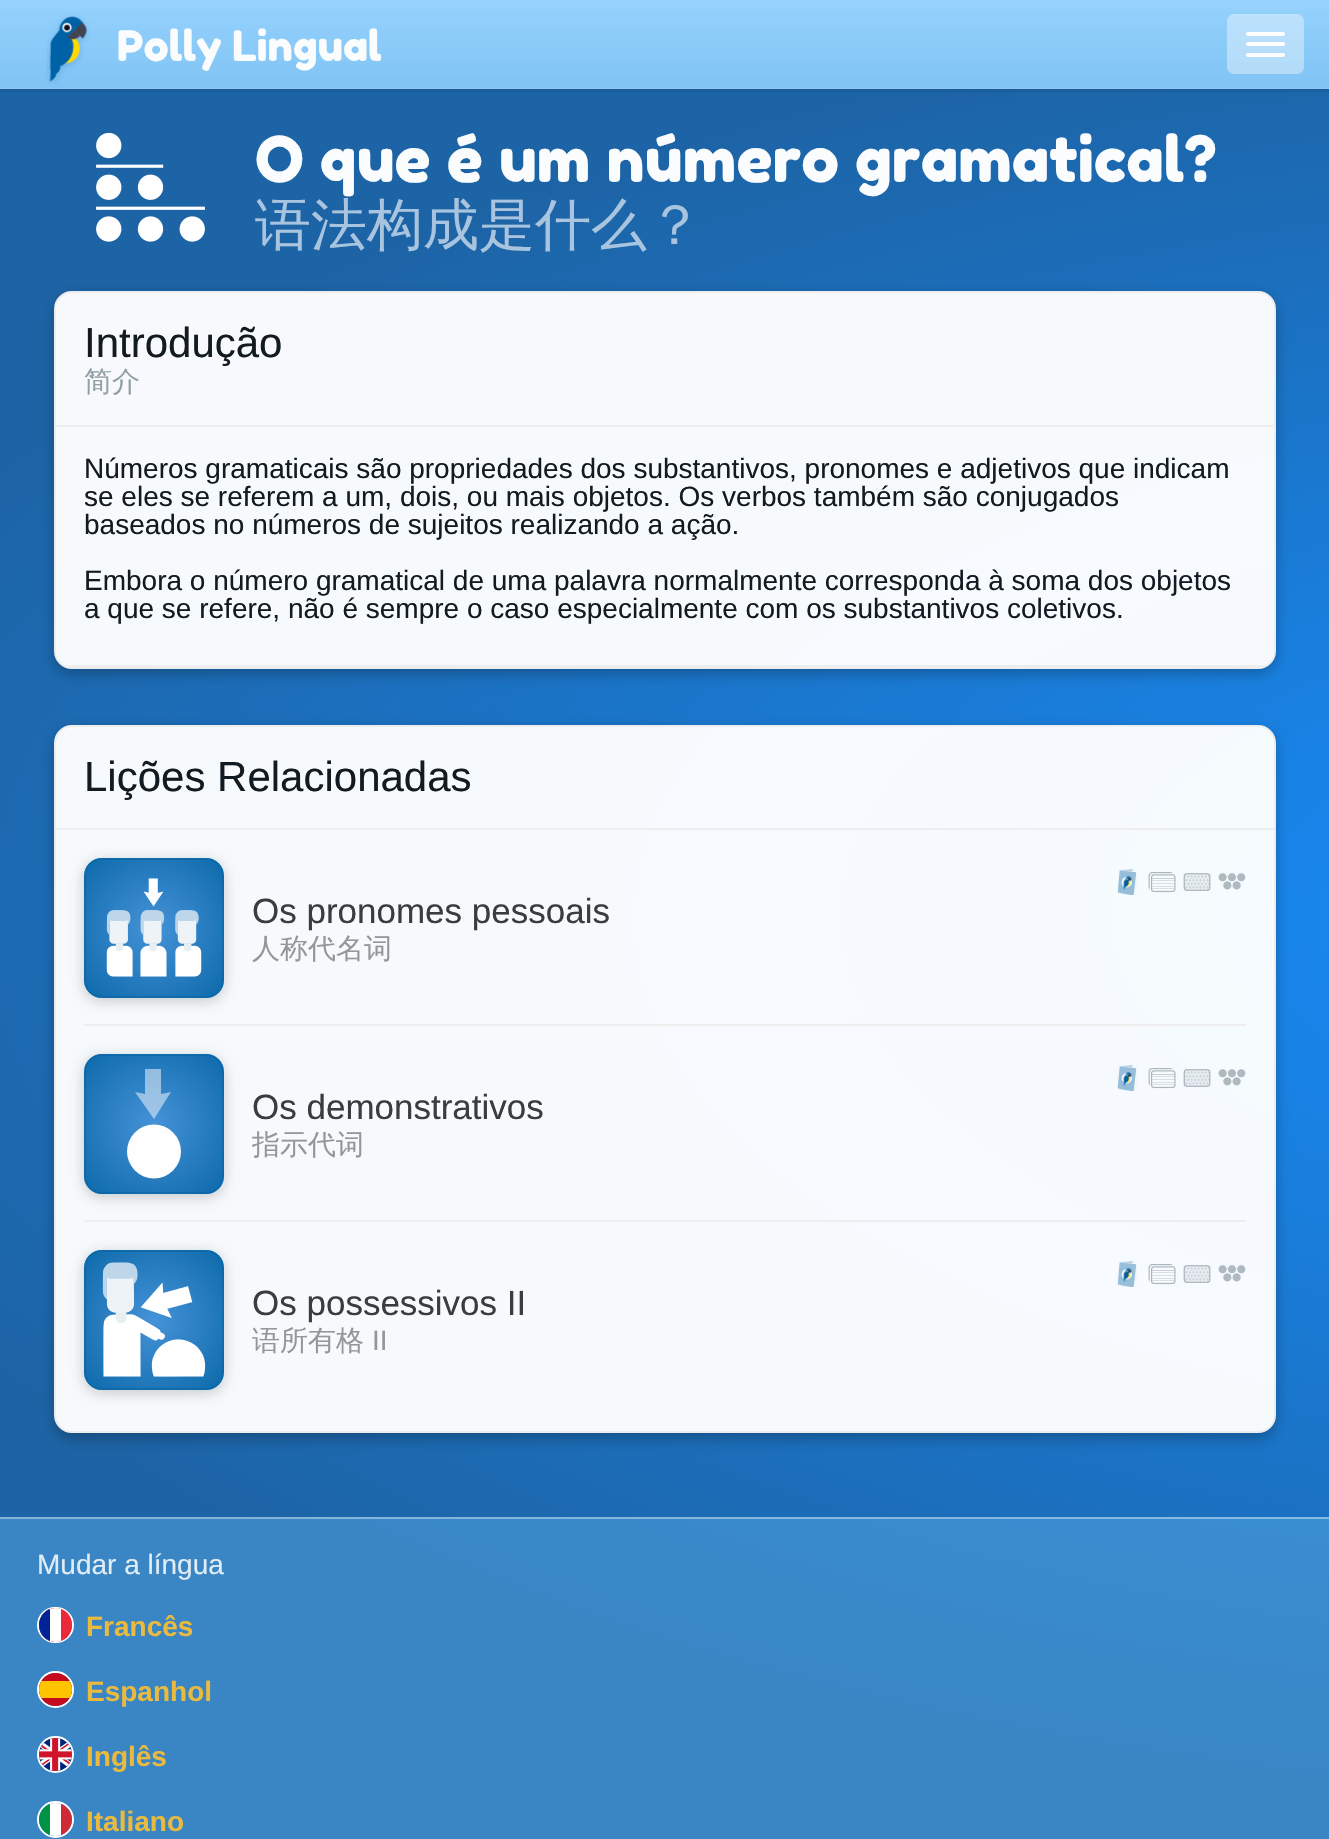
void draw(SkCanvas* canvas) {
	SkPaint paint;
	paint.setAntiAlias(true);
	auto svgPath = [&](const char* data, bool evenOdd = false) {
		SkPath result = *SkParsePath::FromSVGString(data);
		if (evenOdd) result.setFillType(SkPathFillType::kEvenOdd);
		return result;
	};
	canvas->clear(0xffffffff);
	canvas->drawImageRect(SkImages::DeferredFromEncodedData(SkData::MakeFromFileName("img1.png")), SkRect::MakeXYWH(0, 0, 1329, 1839), SkSamplingOptions());
	canvas->save();
	canvas->clipRect(SkRect::MakeXYWH(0, 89, 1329, 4));
	paint.setColor(0x1a000000);
	paint.setMaskFilter(SkMaskFilter::MakeBlur(kNormal_SkBlurStyle, 2));
	canvas->drawRect(SkRect::MakeXYWH(0, 2, 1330, 89), paint);
	paint.setMaskFilter(nullptr);
	canvas->restore();
	paint.setColor(0x0f002947);
	canvas->drawRect(SkRect::MakeXYWH(0, 88, 1329, 2), paint);
	canvas->drawImageRect(SkImages::DeferredFromEncodedData(SkData::MakeFromFileName("img2.png")), SkRect::MakeXYWH(46, 14, 44, 70), SkSamplingOptions());
	SkFont f1(fontMgr->matchFamilyStyle("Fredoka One", SkFontStyle::Normal()), 42);
	f1.setSubpixel(true);
	paint.setColor(0xfffafcfd);
	canvas->drawString("Polly Lingual", 117, 61, f1, paint);
	paint.setColor(0x61ffffff);
	canvas->drawRoundRect(SkRect::MakeXYWH(1227, 14, 77, 60), 7, 7, paint);
	paint.setColor(0xffffffff);
	canvas->drawRoundRect(SkRect::MakeXYWH(1246, 32, 39, 4), 2, 2, paint);
	canvas->drawRoundRect(SkRect::MakeXYWH(1246, 42, 39, 4), 2, 2, paint);
	canvas->drawRoundRect(SkRect::MakeXYWH(1246, 53, 39, 4), 2, 2, paint);
	canvas->drawImageRect(SkImages::DeferredFromEncodedData(SkData::MakeFromFileName("img3.png")), SkRect::MakeXYWH(96, 132, 109, 110), SkSamplingOptions());
	SkFont f2(fontMgr->matchFamilyStyle("Fredoka One", SkFontStyle::Normal()), 63);
	f2.setSubpixel(true);
	paint.setColor(0xfffafcfd);
	canvas->drawString("O que é um número gramatical?", 255, 182, f2, paint);
	SkFont f3(fontMgr->matchFamilyStyle("WenQuanYi Zen Hei", SkFontStyle(500, SkFontStyle::kNormal_Width, SkFontStyle::kUpright_Slant)), 56);
	f3.setSubpixel(true);
	paint.setColor(0xffa9c4de);
	canvas->drawString("语法构成是什么？", 255, 244, f3, paint);
	canvas->save();
	canvas->clipPath(svgPath("M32 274H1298V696H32ZM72 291H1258C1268 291 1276 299 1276 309V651C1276 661 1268 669 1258 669H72C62 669 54 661 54 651V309C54 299 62 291 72 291Z", true), true);
	paint.setColor(0x40000000);
	paint.setMaskFilter(SkMaskFilter::MakeBlur(kNormal_SkBlurStyle, 7));
	canvas->drawRoundRect(SkRect::MakeXYWH(54, 296, 1222, 378), 18, 18, paint);
	paint.setMaskFilter(nullptr);
	canvas->restore();
	paint.setColor(0xf5ffffff);
	canvas->drawRoundRect(SkRect::MakeXYWH(55, 292, 1220, 376), 17, 17, paint);
	paint.setStroke(true);
	paint.setStrokeWidth(2);
	paint.setColor(0xffededed);
	canvas->drawRoundRect(SkRect::MakeXYWH(55, 292, 1220, 376), 17, 17, paint);
	SkFont f4(fontMgr->matchFamilyStyle("Liberation Sans", SkFontStyle::Normal()), 42);
	f4.setSubpixel(true);
	paint.setStroke(false);
	paint.setColor(0xff131b22);
	canvas->drawString("Introdução", 84, 357, f4, paint);
	paint.setColor(0xffeeeeee);
	canvas->drawRect(SkRect::MakeXYWH(56, 425, 1218, 2), paint);
	SkFont f5(fontMgr->matchFamilyStyle("WenQuanYi Zen Hei", SkFontStyle(500, SkFontStyle::kNormal_Width, SkFontStyle::kUpright_Slant)), 28);
	f5.setSubpixel(true);
	paint.setColor(0xff929fa7);
	canvas->drawString("简介", 84, 391, f5, paint);
	canvas->save();
	canvas->clipPath(svgPath("M72 292H1258C1267 292 1274 299 1274 308V651C1274 660 1267 667 1258 667H72C63 667 56 660 56 651V308C56 299 63 292 72 292Z"), true);
	paint.setColor(0xffeeeeee);
	canvas->drawRect(SkRect::MakeXYWH(56, 665, 1218, 2), paint);
	canvas->restore();
	SkFont f6(fontMgr->matchFamilyStyle("Liberation Sans", SkFontStyle::Normal()), 28);
	f6.setSubpixel(true);
	paint.setColor(0xff131b22);
	canvas->drawString("Números gramaticais são propriedades dos substantivos, pronomes e adjetivos que indicam", 84, 478, f6, paint);
	canvas->drawString("se eles se referem a um, dois, ou mais objetos. Os verbos também são conjugados", 84, 506, f6, paint);
	canvas->drawString("baseados no números de sujeitos realizando a ação.", 84, 534, f6, paint);
	canvas->drawString("Embora o número gramatical de uma palavra normalmente corresponda à soma dos objetos", 84, 590, f6, paint);
	canvas->drawString("a que se refere, não é sempre o caso especialmente com os substantivos coletivos.", 84, 618, f6, paint);
	canvas->save();
	canvas->clipPath(svgPath("M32 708H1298V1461H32ZM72 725H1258C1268 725 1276 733 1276 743V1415C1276 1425 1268 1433 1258 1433H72C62 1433 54 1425 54 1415V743C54 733 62 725 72 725Z", true), true);
	paint.setColor(0x40000000);
	paint.setMaskFilter(SkMaskFilter::MakeBlur(kNormal_SkBlurStyle, 7));
	canvas->drawRoundRect(SkRect::MakeXYWH(54, 730, 1222, 709), 18, 18, paint);
	paint.setMaskFilter(nullptr);
	canvas->restore();
	paint.setColor(0xf5ffffff);
	canvas->drawRoundRect(SkRect::MakeXYWH(55, 726, 1220, 706), 17, 17, paint);
	paint.setStroke(true);
	paint.setColor(0xffededed);
	canvas->drawRoundRect(SkRect::MakeXYWH(55, 726, 1220, 706), 17, 17, paint);
	paint.setStroke(false);
	paint.setColor(0xff131b22);
	canvas->drawString("Lições Relacionadas", 84, 791, f4, paint);
	paint.setColor(0xffeeeeee);
	canvas->drawRect(SkRect::MakeXYWH(56, 828, 1218, 2), paint);
	canvas->drawRect(SkRect::MakeXYWH(84, 1024, 1162, 2), paint);
	canvas->save();
	canvas->clipPath(svgPath("M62 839H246V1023H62ZM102 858H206C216 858 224 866 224 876V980C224 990 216 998 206 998H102C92 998 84 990 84 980V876C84 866 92 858 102 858Z", true), true);
	paint.setColor(0x33000000);
	paint.setMaskFilter(SkMaskFilter::MakeBlur(kNormal_SkBlurStyle, 7));
	canvas->drawRoundRect(SkRect::MakeXYWH(84, 861, 140, 140), 18, 18, paint);
	paint.setMaskFilter(nullptr);
	canvas->restore();
	paint.setColor(0xf20062a6);
	canvas->drawRoundRect(SkRect::MakeXYWH(84, 858, 140, 140), 18, 18, paint);
	{
		const SkColor colors[] = {0xa663a7ef, 0x0063a7ef};
		const float stops[] = {0, 1};
		paint.setShader(SkGradientShader::MakeRadial({154, 791}, 97, colors, stops, 2, SkTileMode::kClamp));
		paint.setAlpha(255);
	}
	canvas->drawRect(SkRect::MakeXYWH(97, 858, 114, 1), paint);
	{
		const SkColor colors[] = {0xa663a7ef, 0x0063a7ef};
		const float stops[] = {0, 1};
		paint.setShader(SkGradientShader::MakeRadial({18, 928}, 97, colors, stops, 2, SkTileMode::kClamp));
		paint.setAlpha(255);
	}
	canvas->drawRect(SkRect::MakeXYWH(84, 869, 2, 118), paint);
	{
		const SkColor colors[] = {0xa663a7ef, 0x0063a7ef};
		const float stops[] = {0, 1};
		paint.setShader(SkGradientShader::MakeRadial({154, 928}, 97, colors, stops, 2, SkTileMode::kClamp));
		paint.setAlpha(255);
	}
	canvas->drawRect(SkRect::MakeXYWH(86, 859, 136, 137), paint);
	{
		const SkColor colors[] = {0xa663a7ef, 0x0063a7ef};
		const float stops[] = {0, 1};
		paint.setShader(SkGradientShader::MakeRadial({291, 928}, 97, colors, stops, 2, SkTileMode::kClamp));
		paint.setAlpha(255);
	}
	canvas->drawRect(SkRect::MakeXYWH(222, 869, 2, 118), paint);
	{
		const SkColor colors[] = {0xa663a7ef, 0x0063a7ef};
		const float stops[] = {0, 1};
		paint.setShader(SkGradientShader::MakeRadial({154, 1064}, 97, colors, stops, 2, SkTileMode::kClamp));
		paint.setAlpha(255);
	}
	canvas->drawRect(SkRect::MakeXYWH(95, 996, 118, 2), paint);
	paint.setStroke(true);
	paint.setShader(nullptr);
	paint.setColor(0x800062a6);
	canvas->drawRoundRect(SkRect::MakeXYWH(85, 859, 138, 138), 17, 17, paint);
	canvas->drawImageRect(SkImages::DeferredFromEncodedData(SkData::MakeFromFileName("img4.png")), SkRect::MakeXYWH(106, 878, 96, 99), SkSamplingOptions());
	canvas->drawImageRect(SkImages::DeferredFromEncodedData(SkData::MakeFromFileName("img5.png")), SkRect::MakeXYWH(1117, 869, 20, 26), SkSamplingOptions());
	canvas->drawImageRect(SkImages::DeferredFromEncodedData(SkData::MakeFromFileName("img6.png")), SkRect::MakeXYWH(1148, 872, 28, 21), SkSamplingOptions());
	canvas->drawImageRect(SkImages::DeferredFromEncodedData(SkData::MakeFromFileName("img7.png")), SkRect::MakeXYWH(1183, 873, 28, 18), SkSamplingOptions());
	canvas->drawImageRect(SkImages::DeferredFromEncodedData(SkData::MakeFromFileName("img8.png")), SkRect::MakeXYWH(1218, 873, 28, 17), SkSamplingOptions());
	SkFont f7(fontMgr->matchFamilyStyle("Liberation Sans", SkFontStyle::Normal()), 35);
	f7.setSubpixel(true);
	paint.setStroke(false);
	paint.setColor(0xff3b3c3d);
	canvas->drawString("Os pronomes pessoais", 252, 923, f7, paint);
	paint.setColor(0xff949697);
	canvas->drawString("人称代名词", 252, 958, f5, paint);
	paint.setColor(0xffeeeeee);
	canvas->drawRect(SkRect::MakeXYWH(84, 1220, 1162, 2), paint);
	canvas->save();
	canvas->clipPath(svgPath("M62 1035H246V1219H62ZM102 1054H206C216 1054 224 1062 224 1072V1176C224 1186 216 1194 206 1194H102C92 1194 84 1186 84 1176V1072C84 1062 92 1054 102 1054Z", true), true);
	paint.setColor(0x33000000);
	paint.setMaskFilter(SkMaskFilter::MakeBlur(kNormal_SkBlurStyle, 7));
	canvas->drawRoundRect(SkRect::MakeXYWH(84, 1057, 140, 140), 18, 18, paint);
	paint.setMaskFilter(nullptr);
	canvas->restore();
	paint.setColor(0xf20062a6);
	canvas->drawRoundRect(SkRect::MakeXYWH(84, 1054, 140, 140), 18, 18, paint);
	{
		const SkColor colors[] = {0xa663a7ef, 0x0063a7ef};
		const float stops[] = {0, 1};
		paint.setShader(SkGradientShader::MakeRadial({154, 987}, 97, colors, stops, 2, SkTileMode::kClamp));
		paint.setAlpha(255);
	}
	canvas->drawRect(SkRect::MakeXYWH(97, 1054, 114, 1), paint);
	{
		const SkColor colors[] = {0xa663a7ef, 0x0063a7ef};
		const float stops[] = {0, 1};
		paint.setShader(SkGradientShader::MakeRadial({18, 1124}, 97, colors, stops, 2, SkTileMode::kClamp));
		paint.setAlpha(255);
	}
	canvas->drawRect(SkRect::MakeXYWH(84, 1065, 2, 118), paint);
	{
		const SkColor colors[] = {0xa663a7ef, 0x0063a7ef};
		const float stops[] = {0, 1};
		paint.setShader(SkGradientShader::MakeRadial({154, 1124}, 97, colors, stops, 2, SkTileMode::kClamp));
		paint.setAlpha(255);
	}
	canvas->drawRect(SkRect::MakeXYWH(86, 1055, 136, 137), paint);
	{
		const SkColor colors[] = {0xa663a7ef, 0x0063a7ef};
		const float stops[] = {0, 1};
		paint.setShader(SkGradientShader::MakeRadial({291, 1124}, 97, colors, stops, 2, SkTileMode::kClamp));
		paint.setAlpha(255);
	}
	canvas->drawRect(SkRect::MakeXYWH(222, 1065, 2, 118), paint);
	{
		const SkColor colors[] = {0xa663a7ef, 0x0063a7ef};
		const float stops[] = {0, 1};
		paint.setShader(SkGradientShader::MakeRadial({154, 1260}, 97, colors, stops, 2, SkTileMode::kClamp));
		paint.setAlpha(255);
	}
	canvas->drawRect(SkRect::MakeXYWH(95, 1192, 118, 2), paint);
	paint.setStroke(true);
	paint.setShader(nullptr);
	paint.setColor(0x800062a6);
	canvas->drawRoundRect(SkRect::MakeXYWH(85, 1055, 138, 138), 17, 17, paint);
	paint.setStroke(false);
	paint.setColor(0x80fefefe);
	canvas->drawPath(svgPath("M145 1069H161V1094L171 1092L154 1119L135 1092L145 1094Z", true), paint);
	paint.setColor(0xfffefefe);
	canvas->drawCircle(154, 1151.5, 27, paint);
	canvas->drawImageRect(SkImages::DeferredFromEncodedData(SkData::MakeFromFileName("img9.png")), SkRect::MakeXYWH(1117, 1065, 20, 26), SkSamplingOptions());
	canvas->drawImageRect(SkImages::DeferredFromEncodedData(SkData::MakeFromFileName("img10.png")), SkRect::MakeXYWH(1148, 1068, 28, 21), SkSamplingOptions());
	canvas->drawImageRect(SkImages::DeferredFromEncodedData(SkData::MakeFromFileName("img11.png")), SkRect::MakeXYWH(1183, 1069, 28, 18), SkSamplingOptions());
	canvas->drawImageRect(SkImages::DeferredFromEncodedData(SkData::MakeFromFileName("img12.png")), SkRect::MakeXYWH(1218, 1069, 28, 17), SkSamplingOptions());
	paint.setColor(0xff3b3c3d);
	canvas->drawString("Os demonstrativos", 252, 1119, f7, paint);
	paint.setColor(0xff949697);
	canvas->drawString("指示代词", 252, 1154, f5, paint);
	canvas->save();
	canvas->clipPath(svgPath("M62 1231H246V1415H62ZM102 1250H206C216 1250 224 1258 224 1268V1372C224 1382 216 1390 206 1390H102C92 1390 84 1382 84 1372V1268C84 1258 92 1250 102 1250Z", true), true);
	paint.setColor(0x33000000);
	paint.setMaskFilter(SkMaskFilter::MakeBlur(kNormal_SkBlurStyle, 7));
	canvas->drawRoundRect(SkRect::MakeXYWH(84, 1253, 140, 140), 18, 18, paint);
	paint.setMaskFilter(nullptr);
	canvas->restore();
	paint.setColor(0xf20062a6);
	canvas->drawRoundRect(SkRect::MakeXYWH(84, 1250, 140, 140), 18, 18, paint);
	{
		const SkColor colors[] = {0xa663a7ef, 0x0063a7ef};
		const float stops[] = {0, 1};
		paint.setShader(SkGradientShader::MakeRadial({154, 1183}, 97, colors, stops, 2, SkTileMode::kClamp));
		paint.setAlpha(255);
	}
	canvas->drawRect(SkRect::MakeXYWH(97, 1250, 114, 1), paint);
	{
		const SkColor colors[] = {0xa663a7ef, 0x0063a7ef};
		const float stops[] = {0, 1};
		paint.setShader(SkGradientShader::MakeRadial({18, 1320}, 97, colors, stops, 2, SkTileMode::kClamp));
		paint.setAlpha(255);
	}
	canvas->drawRect(SkRect::MakeXYWH(84, 1261, 2, 118), paint);
	{
		const SkColor colors[] = {0xa663a7ef, 0x0063a7ef};
		const float stops[] = {0, 1};
		paint.setShader(SkGradientShader::MakeRadial({154, 1320}, 97, colors, stops, 2, SkTileMode::kClamp));
		paint.setAlpha(255);
	}
	canvas->drawRect(SkRect::MakeXYWH(86, 1251, 136, 137), paint);
	{
		const SkColor colors[] = {0xa663a7ef, 0x0063a7ef};
		const float stops[] = {0, 1};
		paint.setShader(SkGradientShader::MakeRadial({291, 1320}, 97, colors, stops, 2, SkTileMode::kClamp));
		paint.setAlpha(255);
	}
	canvas->drawRect(SkRect::MakeXYWH(222, 1261, 2, 118), paint);
	{
		const SkColor colors[] = {0xa663a7ef, 0x0063a7ef};
		const float stops[] = {0, 1};
		paint.setShader(SkGradientShader::MakeRadial({154, 1456}, 97, colors, stops, 2, SkTileMode::kClamp));
		paint.setAlpha(255);
	}
	canvas->drawRect(SkRect::MakeXYWH(95, 1388, 118, 2), paint);
	paint.setStroke(true);
	paint.setShader(nullptr);
	paint.setColor(0x800062a6);
	canvas->drawRoundRect(SkRect::MakeXYWH(85, 1251, 138, 138), 17, 17, paint);
	canvas->drawImageRect(SkImages::DeferredFromEncodedData(SkData::MakeFromFileName("img13.png")), SkRect::MakeXYWH(102, 1262, 104, 115), SkSamplingOptions());
	canvas->drawImageRect(SkImages::DeferredFromEncodedData(SkData::MakeFromFileName("img14.png")), SkRect::MakeXYWH(1117, 1261, 20, 26), SkSamplingOptions());
	canvas->drawImageRect(SkImages::DeferredFromEncodedData(SkData::MakeFromFileName("img15.png")), SkRect::MakeXYWH(1148, 1264, 28, 21), SkSamplingOptions());
	canvas->drawImageRect(SkImages::DeferredFromEncodedData(SkData::MakeFromFileName("img16.png")), SkRect::MakeXYWH(1183, 1265, 28, 18), SkSamplingOptions());
	canvas->drawImageRect(SkImages::DeferredFromEncodedData(SkData::MakeFromFileName("img17.png")), SkRect::MakeXYWH(1218, 1265, 28, 17), SkSamplingOptions());
	paint.setStroke(false);
	paint.setColor(0xff3b3c3d);
	canvas->drawString("Os possessivos II", 252, 1315, f7, paint);
	paint.setColor(0xff949697);
	canvas->drawString("语所有格", 252, 1350, f5, paint);
	canvas->drawString("II", 372, 1350, f6, paint);
	paint.setColor(0x8056a8e2);
	canvas->drawRect(SkRect::MakeXYWH(0, 1517, 1329, 322), paint);
	paint.setColor(0x61ffffff);
	canvas->drawRect(SkRect::MakeXYWH(0, 1517, 1329, 2), paint);
	paint.setColor(0xffe1edf6);
	canvas->drawString("Mudar a língua", 37, 1574, f6, paint);
	paint.setStroke(true);
	paint.setColor(0xffffffff);
	canvas->drawRoundRect(SkRect::MakeXYWH(38, 1608, 35, 34), 17, 17, paint);
	paint.setStroke(false);
	paint.setColor(0xffed2939);
	canvas->drawRoundRect(SkRect::MakeXYWH(39, 1608, 33, 34), 16.5, 16.5, paint);
	canvas->save();
	canvas->clipPath(svgPath("M55.5 1608C64.5 1608 72 1615.5 72 1624.5V1625.5C72 1634.5 64.5 1642 55.5 1642C46.5 1642 39 1634.5 39 1625.5V1624.5C39 1615.5 46.5 1608 55.5 1608Z"), true);
	paint.setColor(0xffffffff);
	canvas->drawPath(svgPath("M55.5 1608H61V1642H55.5C46.5 1642 39 1634.5 39 1625.5V1624.5C39 1615.5 46.5 1608 55.5 1608Z"), paint);
	paint.setColor(0xff002395);
	canvas->drawRect(SkRect::MakeXYWH(39, 1609, 11, 32), paint);
	canvas->restore();
	SkFont f8(fontMgr->matchFamilyStyle("Liberation Sans", SkFontStyle::Bold()), 28);
	f8.setSubpixel(true);
	paint.setColor(0xffeaba3f);
	canvas->drawString("Francês", 86, 1636, f8, paint);
	paint.setStroke(true);
	paint.setColor(0xffffffff);
	canvas->drawCircle(55.5, 1689.5, 17.5, paint);
	paint.setStroke(false);
	paint.setColor(0xffc60b1e);
	canvas->drawCircle(55.5, 1689.5, 16.5, paint);
	paint.setColor(0xffeaba3f);
	canvas->drawString("Espanhol", 86, 1701, f8, paint);
	canvas->save();
	canvas->clipPath(svgPath("M55.5 1673C64.5 1673 72 1680.5 72 1689.5C72 1698.5 64.5 1706 55.5 1706C46.5 1706 39 1698.5 39 1689.5C39 1680.5 46.5 1673 55.5 1673Z"), true);
	paint.setColor(0xffffc400);
	canvas->drawRect(SkRect::MakeXYWH(39, 1681, 33, 17), paint);
	canvas->restore();
	paint.setStroke(true);
	paint.setColor(0xffffffff);
	canvas->drawCircle(55.5, 1754.5, 17.5, paint);
	canvas->drawImageRect(SkImages::DeferredFromEncodedData(SkData::MakeFromFileName("img18.png")), SkRect::MakeXYWH(39, 1738, 33, 33), SkSamplingOptions());
	paint.setStroke(false);
	paint.setColor(0xffeaba3f);
	canvas->drawString("Inglês", 86, 1766, f8, paint);
	paint.setStroke(true);
	paint.setColor(0xffffffff);
	canvas->drawCircle(55.5, 1819.5, 17.5, paint);
	canvas->save();
	canvas->clipPath(svgPath("M55.5 1803C64.5 1803 72 1810.5 72 1819.5C72 1828.5 64.5 1836 55.5 1836C46.5 1836 39 1828.5 39 1819.5C39 1810.5 46.5 1803 55.5 1803Z"), true);
	paint.setStroke(false);
	paint.setColor(0xff009246);
	canvas->drawRect(SkRect::MakeXYWH(39, 1804, 11, 31), paint);
	paint.setColor(0xffffffff);
	canvas->drawRect(SkRect::MakeXYWH(50, 1803, 11, 33), paint);
	paint.setColor(0xffce2b37);
	canvas->drawRect(SkRect::MakeXYWH(61, 1804, 11, 31), paint);
	canvas->restore();
	paint.setColor(0xffeaba3f);
	canvas->drawString("Italiano", 86, 1831, f8, paint);
}
